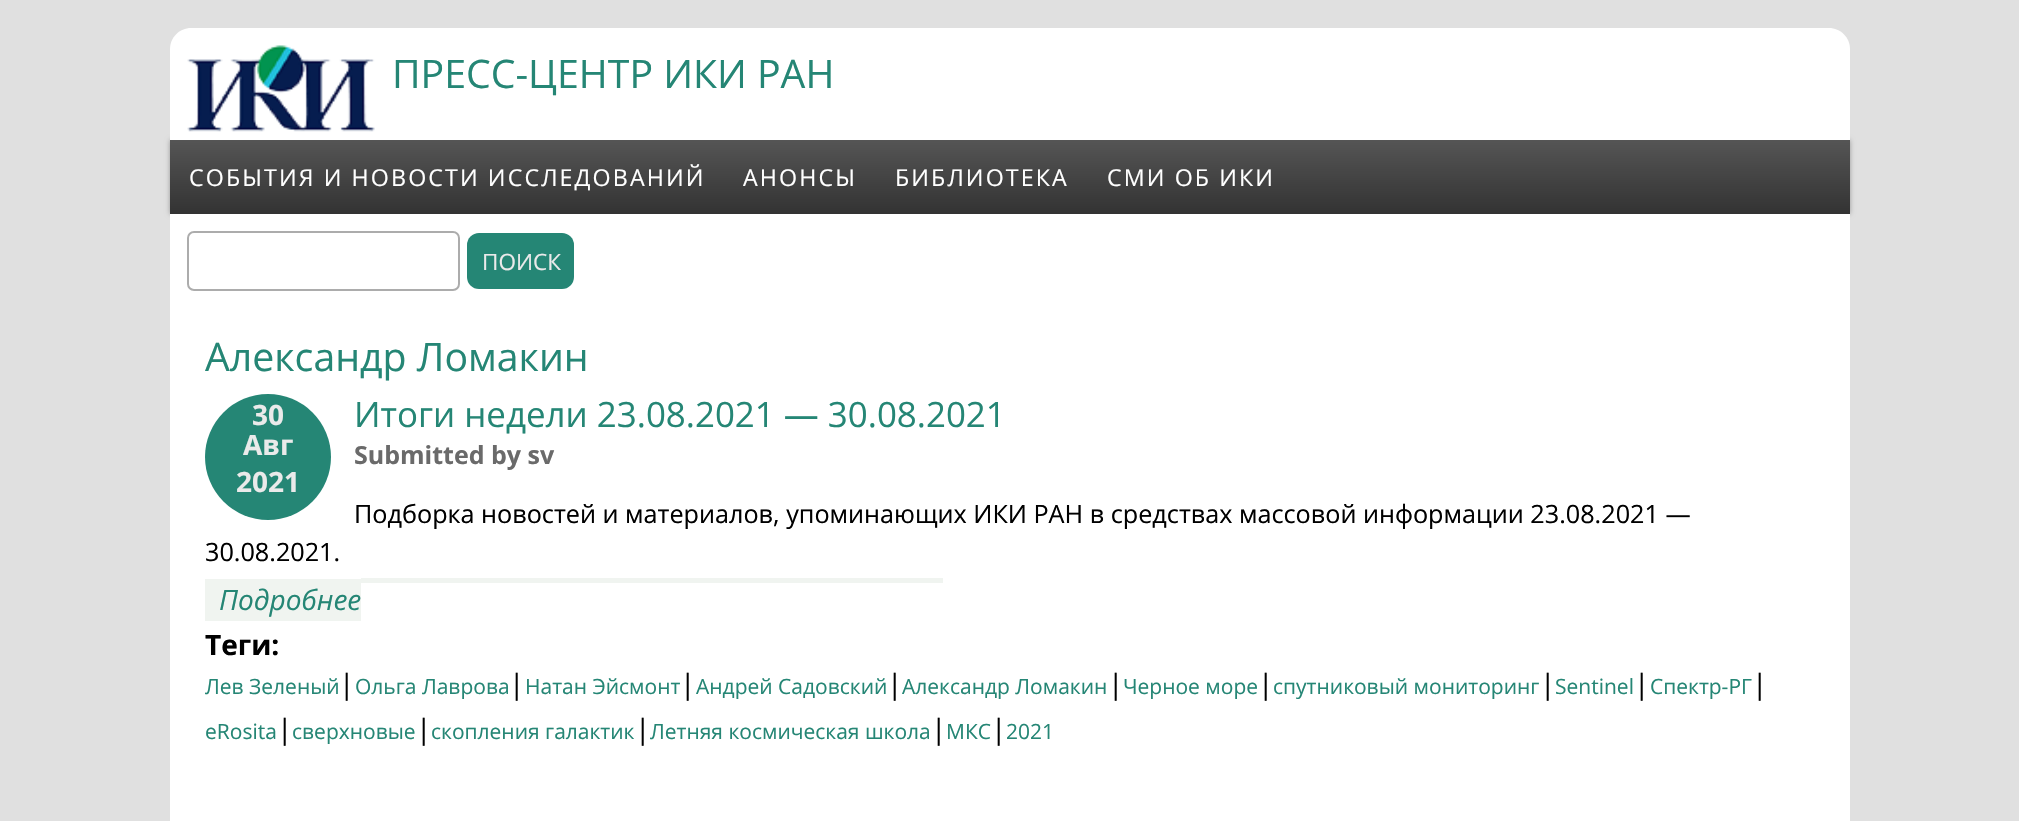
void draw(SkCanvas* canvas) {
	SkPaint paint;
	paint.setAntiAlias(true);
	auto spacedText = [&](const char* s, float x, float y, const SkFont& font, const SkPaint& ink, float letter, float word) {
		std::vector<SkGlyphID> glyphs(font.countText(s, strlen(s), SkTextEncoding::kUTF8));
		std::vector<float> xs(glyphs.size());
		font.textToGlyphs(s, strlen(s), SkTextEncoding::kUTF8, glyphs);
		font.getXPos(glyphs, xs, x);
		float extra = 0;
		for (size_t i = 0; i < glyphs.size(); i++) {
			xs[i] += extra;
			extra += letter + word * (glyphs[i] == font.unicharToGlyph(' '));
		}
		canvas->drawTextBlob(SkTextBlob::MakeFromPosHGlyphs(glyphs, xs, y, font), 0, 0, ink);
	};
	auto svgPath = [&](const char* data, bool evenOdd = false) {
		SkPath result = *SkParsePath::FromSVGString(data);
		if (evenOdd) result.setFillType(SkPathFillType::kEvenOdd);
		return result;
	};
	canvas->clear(0xffe0e0e0);
	paint.setColor(0xff999999);
	paint.setMaskFilter(SkMaskFilter::MakeBlur(kNormal_SkBlurStyle, 2.5));
	canvas->drawRect(SkRect::MakeXYWH(170, 140, 1680, 74), paint);
	paint.setMaskFilter(nullptr);
	paint.setColor(0xffffffff);
	canvas->drawPath(svgPath("M191 28H1829C1840.5 28 1850 37.5 1850 49V140H170V49C170 37.5 179.5 28 191 28Z"), paint);
	canvas->drawImageRect(SkImages::DeferredFromEncodedData(SkData::MakeFromFileName("img1.png")), SkRect::MakeXYWH(187, 45, 188, 87), SkSamplingOptions());
	SkFont f1(fontMgr->matchFamilyStyle("Open Sans", SkFontStyle::Normal()), 39.25);
	f1.setSubpixel(true);
	paint.setColor(0xff258675);
	canvas->drawString("ПРЕСС-ЦЕНТР ИКИ РАН", 392, 88, f1, paint);
	{
		const SkColor colors[] = {0xff555555, 0xff333333, 0xff555555, 0xff333333};
		const float stops[] = {0, 0.5, 0.5, 1};
		const SkPoint ends[] = {{1010, 140}, {1010, 287}};
		paint.setShader(SkGradientShader::MakeLinear(ends, colors, stops, 4, SkTileMode::kClamp));
		paint.setAlpha(255);
	}
	canvas->drawRect(SkRect::MakeXYWH(170, 140, 1680, 74), paint);
	SkFont f2(fontMgr->matchFamilyStyle("Open Sans", SkFontStyle::Normal()), 23.25);
	f2.setSubpixel(true);
	paint.setShader(nullptr);
	paint.setColor(0xffffffff);
	spacedText("СОБЫТИЯ И НОВОСТИ ИССЛЕДОВАНИЙ", 189, 186, f2, paint, 2.1, 0);
	spacedText("АНОНСЫ", 743, 186, f2, paint, 2.1, 0);
	spacedText("БИБЛИОТЕКА", 895, 186, f2, paint, 2.1, 0);
	spacedText("СМИ ОБ ИКИ", 1107, 186, f2, paint, 2.1, 0);
	canvas->drawRect(SkRect::MakeXYWH(170, 214, 1680, 607), paint);
	paint.setStroke(true);
	paint.setStrokeWidth(2);
	paint.setColor(0xffacacac);
	canvas->drawRoundRect(SkRect::MakeXYWH(188, 232, 271, 58), 6, 6, paint);
	paint.setStroke(false);
	paint.setColor(0xff258675);
	canvas->drawRoundRect(SkRect::MakeXYWH(467, 233, 107, 56), 12, 12, paint);
	SkFont f3(fontMgr->matchFamilyStyle("Open Sans", SkFontStyle::Normal()), 22.5);
	f3.setSubpixel(true);
	paint.setColor(0xffeaeaea);
	canvas->drawString("ПОИСК", 482, 270, f3, paint);
	paint.setColor(0xff258675);
	canvas->drawString("Александр Ломакин", 205, 371, f1, paint);
	canvas->drawCircle(268, 457, 63, paint);
	SkFont f4(fontMgr->matchFamilyStyle("Open Sans", SkFontStyle::Bold()), 28);
	f4.setSubpixel(true);
	paint.setColor(0xffeaeaea);
	canvas->drawString("30", 252, 425, f4, paint);
	canvas->drawString("Авг", 243, 455, f4, paint);
	canvas->drawString("2021", 236, 492, f4, paint);
	SkFont f5(fontMgr->matchFamilyStyle("Open Sans", SkFontStyle::Normal()), 34.9);
	f5.setSubpixel(true);
	paint.setColor(0xff258675);
	canvas->drawString("Итоги недели 23.08.2021 — 30.08.2021", 354, 427, f5, paint);
	SkFont f6(fontMgr->matchFamilyStyle("Open Sans", SkFontStyle::Bold()), 25);
	f6.setSubpixel(true);
	paint.setColor(0xff6a6a6a);
	canvas->drawString("Submitted by sv", 354, 464, f6, paint);
	SkFont f7(fontMgr->matchFamilyStyle("Open Sans", SkFontStyle::Normal()), 25.2);
	f7.setSubpixel(true);
	paint.setColor(0xff000000);
	canvas->drawString("Подборка новостей и материалов, упоминающих ИКИ РАН в средствах массовой информации 23.08.2021 —", 354, 523, f7, paint);
	canvas->drawString("30.08.2021.", 205, 561, f7, paint);
	paint.setColor(0xfff0f4f0);
	canvas->drawRect(SkRect::MakeXYWH(205, 579, 156, 42), paint);
	SkFont f8(fontMgr->matchFamilyStyle("Open Sans", SkFontStyle::Italic()), 28);
	f8.setSubpixel(true);
	paint.setColor(0xff258675);
	canvas->drawString("Подробнее", 219, 610, f8, paint);
	paint.setColor(0xfff0f4f0);
	canvas->drawRect(SkRect::MakeXYWH(361, 578, 582, 5), paint);
	paint.setColor(0xff000000);
	canvas->drawString("Теги:", 205, 655, f4, paint);
	SkFont f9(fontMgr->matchFamilyStyle("Open Sans", SkFontStyle::Normal()), 21);
	f9.setSubpixel(true);
	paint.setColor(0xff258675);
	canvas->drawString("Лев Зеленый", 205, 694, f9, paint);
	SkFont f10(fontMgr->matchFamilyStyle("Open Sans", SkFontStyle::Normal()), 28);
	f10.setSubpixel(true);
	paint.setColor(0xff000000);
	canvas->drawString("|", 339, 694, f10, paint);
	paint.setColor(0xff258675);
	canvas->drawString("Ольга Лаврова", 355, 694, f9, paint);
	paint.setColor(0xff000000);
	canvas->drawString("|", 509, 694, f10, paint);
	paint.setColor(0xff258675);
	canvas->drawString("Натан Эйсмонт", 525, 694, f9, paint);
	paint.setColor(0xff000000);
	canvas->drawString("|", 680, 694, f10, paint);
	paint.setColor(0xff258675);
	canvas->drawString("Андрей Садовский", 696, 694, f9, paint);
	paint.setColor(0xff000000);
	canvas->drawString("|", 887, 694, f10, paint);
	paint.setColor(0xff258675);
	canvas->drawString("Александр Ломакин", 902, 694, f9, paint);
	paint.setColor(0xff000000);
	canvas->drawString("|", 1108, 694, f10, paint);
	paint.setColor(0xff258675);
	canvas->drawString("Черное море", 1123, 694, f9, paint);
	paint.setColor(0xff000000);
	canvas->drawString("|", 1258, 694, f10, paint);
	paint.setColor(0xff258675);
	canvas->drawString("спутниковый мониторинг", 1273, 694, f9, paint);
	paint.setColor(0xff000000);
	canvas->drawString("|", 1540, 694, f10, paint);
	paint.setColor(0xff258675);
	canvas->drawString("Sentinel", 1555, 694, f9, paint);
	paint.setColor(0xff000000);
	canvas->drawString("|", 1634, 694, f10, paint);
	paint.setColor(0xff258675);
	canvas->drawString("Спектр-РГ", 1650, 694, f9, paint);
	paint.setColor(0xff000000);
	canvas->drawString("|", 1752, 694, f10, paint);
	paint.setColor(0xff258675);
	canvas->drawString("eRosita", 205, 739, f9, paint);
	paint.setColor(0xff000000);
	canvas->drawString("|", 277, 739, f10, paint);
	paint.setColor(0xff258675);
	canvas->drawString("сверхновые", 292, 739, f9, paint);
	paint.setColor(0xff000000);
	canvas->drawString("|", 416, 739, f10, paint);
	paint.setColor(0xff258675);
	canvas->drawString("скопления галактик", 431, 739, f9, paint);
	paint.setColor(0xff000000);
	canvas->drawString("|", 635, 739, f10, paint);
	paint.setColor(0xff258675);
	canvas->drawString("Летняя космическая школа", 650, 739, f9, paint);
	paint.setColor(0xff000000);
	canvas->drawString("|", 931, 739, f10, paint);
	paint.setColor(0xff258675);
	canvas->drawString("МКС", 946, 739, f9, paint);
	paint.setColor(0xff000000);
	canvas->drawString("|", 991, 739, f10, paint);
	paint.setColor(0xff258675);
	canvas->drawString("2021", 1006, 739, f9, paint);
}
